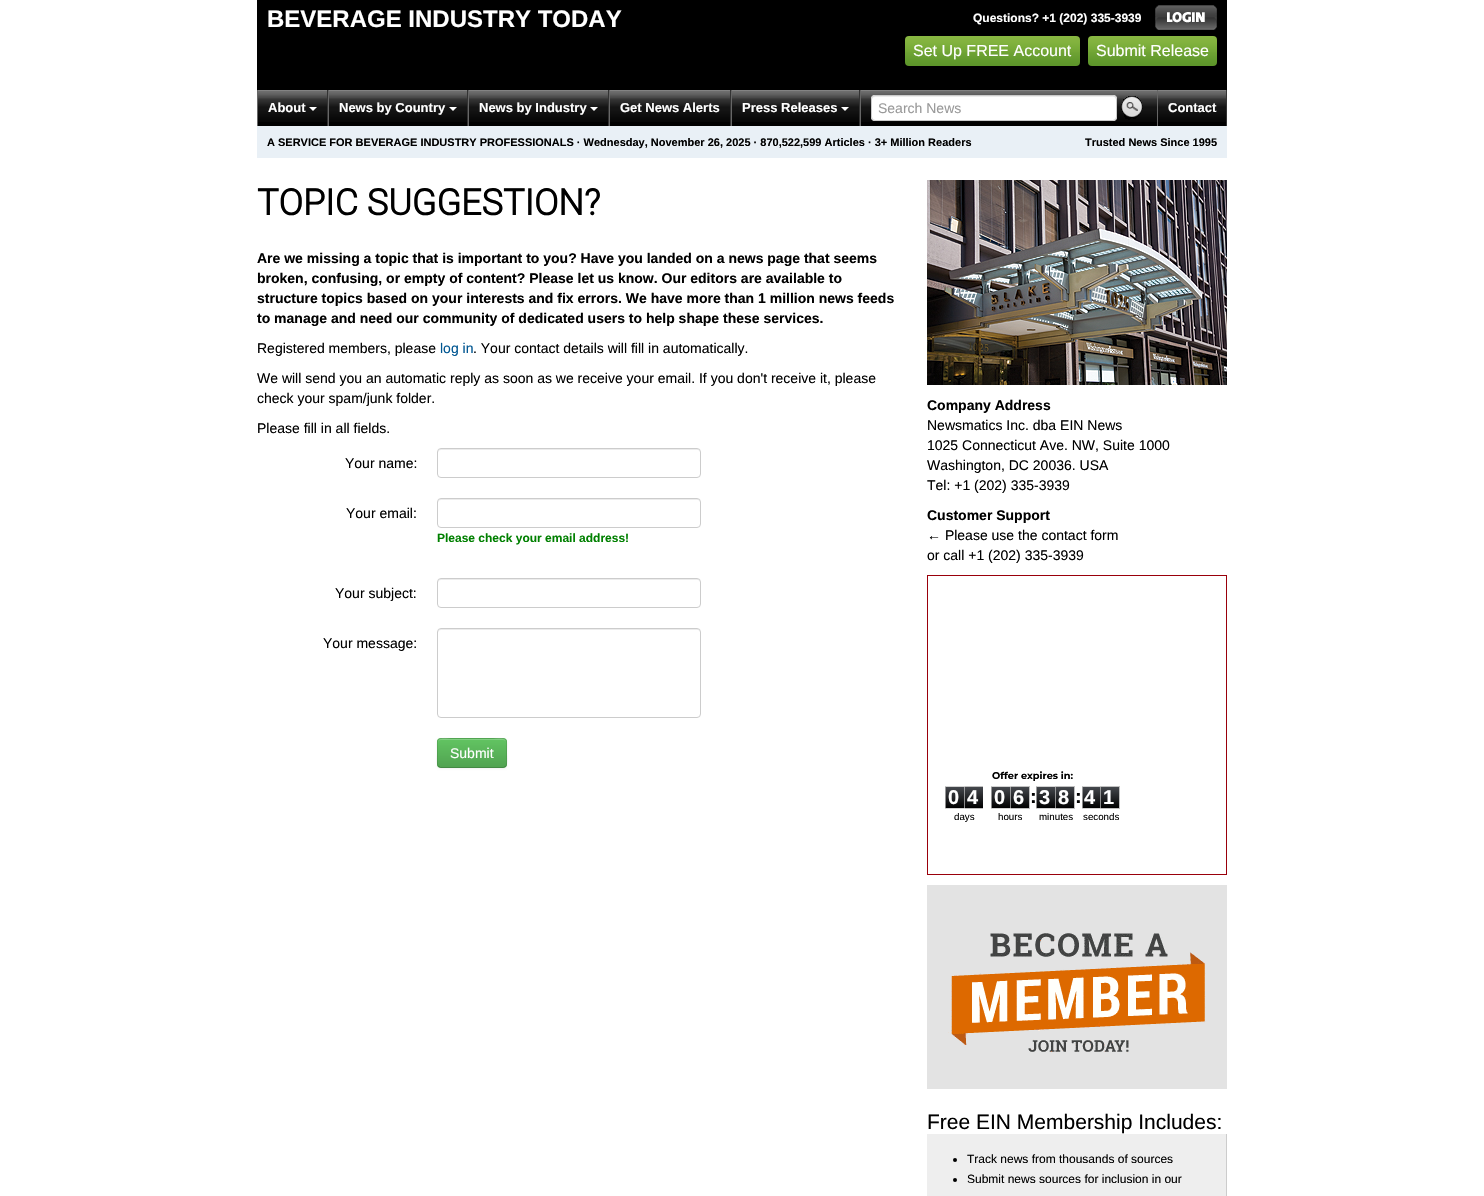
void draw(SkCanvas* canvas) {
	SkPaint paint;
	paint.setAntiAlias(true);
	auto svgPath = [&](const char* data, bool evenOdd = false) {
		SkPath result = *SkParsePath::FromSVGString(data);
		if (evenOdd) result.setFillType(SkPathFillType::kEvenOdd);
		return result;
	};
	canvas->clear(0xffffffff);
	paint.setColor(0xff000000);
	canvas->drawRect(SkRect::MakeXYWH(257, 0, 970, 90), paint);
	SkFont f1(fontMgr->matchFamilyStyle("Liberation Sans", SkFontStyle::Bold()), 24);
	f1.setSubpixel(true);
	paint.setColor(0xffffffff);
	canvas->drawString("BEVERAGE INDUSTRY TODAY", 267, 27, f1, paint);
	SkFont f2(fontMgr->matchFamilyStyle("Liberation Sans", SkFontStyle::Bold()), 12);
	f2.setSubpixel(true);
	canvas->drawString("Questions? +1 (202) 335-3939", 973, 22, f2, paint);
	canvas->drawImageRect(SkImages::DeferredFromEncodedData(SkData::MakeFromFileName("img1.png")), SkRect::MakeXYWH(1155, 5, 62, 25), SkSamplingOptions());
	canvas->drawImageRect(SkImages::DeferredFromEncodedData(SkData::MakeFromFileName("img2.png")), SkRect::MakeXYWH(905, 36, 175, 30), SkSamplingOptions());
	SkFont f3(fontMgr->matchFamilyStyle("Liberation Sans", SkFontStyle::Normal()), 16);
	f3.setSubpixel(true);
	canvas->drawString("Set Up FREE Account", 913, 56, f3, paint);
	canvas->drawImageRect(SkImages::DeferredFromEncodedData(SkData::MakeFromFileName("img3.png")), SkRect::MakeXYWH(1088, 36, 129, 30), SkSamplingOptions());
	canvas->drawString("Submit Release", 1096, 56, f3, paint);
	paint.setColor(0xff000000);
	canvas->drawRect(SkRect::MakeXYWH(258, 122, 968, 4), paint);
	canvas->drawImageRect(SkImages::DeferredFromEncodedData(SkData::MakeFromFileName("img4.png")), SkRect::MakeXYWH(258, 90, 968, 32), SkSamplingOptions());
	paint.setColor(0xff333333);
	canvas->drawRect(SkRect::MakeXYWH(327, 90, 1, 36), paint);
	paint.setColor(0xff666666);
	canvas->drawRect(SkRect::MakeXYWH(257, 90, 1, 36), paint);
	SkFont f4(fontMgr->matchFamilyStyle("Liberation Sans", SkFontStyle::Bold()), 13);
	f4.setSubpixel(true);
	paint.setColor(0xffffffff);
	canvas->drawString("About", 268, 112, f4, paint);
	canvas->drawPath(svgPath("M309 107H317L313 111Z"), paint);
	paint.setColor(0xff333333);
	canvas->drawRect(SkRect::MakeXYWH(467, 90, 1, 36), paint);
	paint.setColor(0xff666666);
	canvas->drawRect(SkRect::MakeXYWH(328, 90, 1, 36), paint);
	paint.setColor(0xffffffff);
	canvas->drawString("News by Country", 339, 112, f4, paint);
	canvas->drawPath(svgPath("M449 107H457L453 111Z"), paint);
	paint.setColor(0xff333333);
	canvas->drawRect(SkRect::MakeXYWH(608, 90, 1, 36), paint);
	paint.setColor(0xff666666);
	canvas->drawRect(SkRect::MakeXYWH(468, 90, 1, 36), paint);
	paint.setColor(0xffffffff);
	canvas->drawString("News by Industry", 479, 112, f4, paint);
	canvas->drawPath(svgPath("M590 107H598L594 111Z"), paint);
	paint.setColor(0xff333333);
	canvas->drawRect(SkRect::MakeXYWH(730, 90, 1, 36), paint);
	paint.setColor(0xff666666);
	canvas->drawRect(SkRect::MakeXYWH(609, 90, 1, 36), paint);
	paint.setColor(0xffffffff);
	canvas->drawString("Get News Alerts", 620, 112, f4, paint);
	paint.setColor(0xff333333);
	canvas->drawRect(SkRect::MakeXYWH(859, 90, 1, 36), paint);
	paint.setColor(0xff666666);
	canvas->drawRect(SkRect::MakeXYWH(731, 90, 1, 36), paint);
	paint.setColor(0xffffffff);
	canvas->drawString("Press Releases", 742, 112, f4, paint);
	canvas->drawPath(svgPath("M841 107H849L845 111Z"), paint);
	paint.setColor(0xff666666);
	canvas->drawRect(SkRect::MakeXYWH(860, 90, 1, 36), paint);
	paint.setColor(0xffffffff);
	canvas->drawRoundRect(SkRect::MakeXYWH(871, 95, 246, 26), 4, 4, paint);
	paint.setColor(0xffececec);
	canvas->drawPath(svgPath("M875 97H1114L1116 98V100C1116 98 1115 96 1113 96H875C873 96 872 98 872 100C872 98 873 97 875 97Z"), paint);
	paint.setStroke(true);
	paint.setStrokeWidth(1);
	paint.setColor(0xffcccccc);
	canvas->drawRoundRect(SkRect::MakeXYWH(871.5, 95.5, 245, 25), 3.5, 3.5, paint);
	SkFont f5(fontMgr->matchFamilyStyle("Liberation Sans", SkFontStyle::Normal()), 14);
	f5.setSubpixel(true);
	paint.setStroke(false);
	paint.setColor(0xff999999);
	canvas->drawString("Search News", 878, 113, f5, paint);
	canvas->drawImageRect(SkImages::DeferredFromEncodedData(SkData::MakeFromFileName("img5.png")), SkRect::MakeXYWH(1121, 96, 22, 24), SkSamplingOptions());
	paint.setColor(0xff333333);
	canvas->drawRect(SkRect::MakeXYWH(1226, 90, 1, 36), paint);
	paint.setColor(0xff666666);
	canvas->drawRect(SkRect::MakeXYWH(1157, 90, 1, 36), paint);
	paint.setColor(0xffffffff);
	canvas->drawString("Contact", 1168, 112, f4, paint);
	paint.setColor(0xffe9f0f6);
	canvas->drawRect(SkRect::MakeXYWH(257, 126, 970, 32), paint);
	SkFont f6(fontMgr->matchFamilyStyle("Liberation Sans", SkFontStyle::Bold()), 11);
	f6.setSubpixel(true);
	paint.setColor(0xff000000);
	canvas->drawString("A SERVICE FOR BEVERAGE INDUSTRY PROFESSIONALS · Wednesday, November 26, 2025 · 870,522,599 Articles · 3+ Million Readers", 267, 146, f6, paint);
	canvas->drawString("Trusted News Since 1995", 1085, 146, f6, paint);
	SkFont f7(fontMgr->matchFamilyStyle("Roboto", SkFontStyle::Bold()), 36);
	f7.setSubpixel(true);
	canvas->drawString("TOPIC SUGGESTION?", 257, 215, f7, paint);
	SkFont f8(fontMgr->matchFamilyStyle("Liberation Sans", SkFontStyle::Bold()), 14);
	f8.setSubpixel(true);
	canvas->drawString("Are we missing a topic that is important to you? Have you landed on a news page that seems", 257, 263, f8, paint);
	canvas->drawString("broken, confusing, or empty of content? Please let us know. Our editors are available to", 257, 283, f8, paint);
	canvas->drawString("structure topics based on your interests and fix errors. We have more than 1 million news feeds", 257, 303, f8, paint);
	canvas->drawString("to manage and need our community of dedicated users to help shape these services.", 257, 323, f8, paint);
	canvas->drawString("Registered members, please", 257, 353, f5, paint);
	paint.setColor(0xff005691);
	canvas->drawString("log in", 440, 353, f5, paint);
	paint.setColor(0xff000000);
	canvas->drawString(". Your contact details will fill in automatically.", 473, 353, f5, paint);
	canvas->drawString("We will send you an automatic reply as soon as we receive your email. If you don't receive it, please", 257, 383, f5, paint);
	canvas->drawString("check your spam/junk folder.", 257, 403, f5, paint);
	canvas->drawString("Please fill in all fields.", 257, 433, f5, paint);
	canvas->drawString("Your name:", 345, 468, f5, paint);
	paint.setColor(0xffececec);
	canvas->drawPath(svgPath("M441 450H698L700 451V453V452C700 450 699 449 697 449H441C439 449 438 450 438 452V453C438 451 439 450 441 450Z"), paint);
	paint.setStroke(true);
	paint.setColor(0xffcccccc);
	canvas->drawRoundRect(SkRect::MakeXYWH(437.5, 448.5, 263, 29), 3.5, 3.5, paint);
	paint.setStroke(false);
	paint.setColor(0xff000000);
	canvas->drawString("Your email:", 346, 518, f5, paint);
	paint.setColor(0xffececec);
	canvas->drawPath(svgPath("M441 500H698L700 501V503V502C700 500 699 499 697 499H441C439 499 438 500 438 502V503C438 501 439 500 441 500Z"), paint);
	paint.setStroke(true);
	paint.setColor(0xffcccccc);
	canvas->drawRoundRect(SkRect::MakeXYWH(437.5, 498.5, 263, 29), 3.5, 3.5, paint);
	paint.setStroke(false);
	paint.setColor(0xff008000);
	canvas->drawString("Please check your email address!", 437, 542, f2, paint);
	paint.setColor(0xff000000);
	canvas->drawString("Your subject:", 335, 598, f5, paint);
	paint.setColor(0xffececec);
	canvas->drawPath(svgPath("M441 580H698L700 581V583V582C700 580 699 579 697 579H441C439 579 438 580 438 582V583C438 581 439 580 441 580Z"), paint);
	paint.setStroke(true);
	paint.setColor(0xffcccccc);
	canvas->drawRoundRect(SkRect::MakeXYWH(437.5, 578.5, 263, 29), 3.5, 3.5, paint);
	paint.setStroke(false);
	paint.setColor(0xff000000);
	canvas->drawString("Your message:", 323, 648, f5, paint);
	paint.setColor(0xffececec);
	canvas->drawPath(svgPath("M441 630H698L700 631V633V632C700 630 699 629 697 629H441C439 629 438 630 438 632V633C438 631 439 630 441 630Z"), paint);
	paint.setStroke(true);
	paint.setColor(0xffcccccc);
	canvas->drawRoundRect(SkRect::MakeXYWH(437.5, 628.5, 263, 89), 3.5, 3.5, paint);
	paint.setStroke(false);
	paint.setColor(0x0d000000);
	paint.setMaskFilter(SkMaskFilter::MakeBlur(kNormal_SkBlurStyle, 1));
	canvas->drawRoundRect(SkRect::MakeXYWH(437, 739, 70, 30), 4, 4, paint);
	paint.setMaskFilter(nullptr);
	paint.setColor(0xff5bb75b);
	canvas->drawRoundRect(SkRect::MakeXYWH(437, 738, 70, 30), 4, 4, paint);
	canvas->save();
	canvas->clipPath(svgPath("M441 738H503C505 738 507 740 507 742V764C507 766 505 768 503 768H441C439 768 437 766 437 764V742C437 740 439 738 441 738Z"), true);
	{
		const SkColor colors[] = {0xff62c462, 0xff51a351};
		const float stops[] = {0, 1};
		const SkPoint ends[] = {{472, 739}, {472, 767}};
		paint.setShader(SkGradientShader::MakeLinear(ends, colors, stops, 2, SkTileMode::kClamp));
		paint.setAlpha(255);
	}
	canvas->drawRect(SkRect::MakeXYWH(437, 739, 70, 28), paint);
	canvas->restore();
	paint.setShader(nullptr);
	paint.setColor(0x33ffffff);
	canvas->drawPath(svgPath("M441 740H503C505 740 506 741 506 743C506 736 497 739 493 739H451C447 739 438 736 438 743C438 741 439 740 441 740Z"), paint);
	paint.setStroke(true);
	paint.setColor(0x40000000);
	canvas->drawPath(svgPath("M505.5 766.5L503.5 767.5H440.5L438.5 766.5"), paint);
	paint.setColor(0x1a000000);
	canvas->drawPath(svgPath("M438.5 766.5C436.5 764.5 437.5 756 437.5 753C437.5 737 435 738.5 451.5 738.5H492.5C509 738.5 506.5 737 506.5 753C506.5 756 507.5 764.5 505.5 766.5"), paint);
	paint.setStroke(false);
	paint.setColor(0xffffffff);
	canvas->drawString("Submit", 450, 758, f5, paint);
	canvas->drawImageRect(SkImages::DeferredFromEncodedData(SkData::MakeFromFileName("img6.png")), SkRect::MakeXYWH(927, 180, 300, 205), SkSamplingOptions());
	paint.setColor(0xff000000);
	canvas->drawString("Company Address", 927, 410, f8, paint);
	canvas->drawString("Newsmatics Inc. dba EIN News", 927, 430, f5, paint);
	canvas->drawString("1025 Connecticut Ave. NW, Suite 1000", 927, 450, f5, paint);
	canvas->drawString("Washington, DC 20036. USA", 927, 470, f5, paint);
	canvas->drawString("Tel: +1 (202) 335-3939", 927, 490, f5, paint);
	canvas->drawString("Customer Support", 927, 520, f8, paint);
	canvas->drawString("← Please use the contact form", 927, 540, f5, paint);
	canvas->drawString("or call +1 (202) 335-3939", 927, 560, f5, paint);
	paint.setStroke(true);
	paint.setColor(0xff9a000b);
	canvas->drawRect(SkRect::MakeXYWH(927.5, 575.5, 299, 299), paint);
	SkFont f9(fontMgr->matchFamilyStyle("Montserrat", SkFontStyle::Bold()), 9.75);
	f9.setSubpixel(true);
	paint.setStroke(false);
	paint.setColor(0xff000000);
	canvas->drawString("Offer expires in:", 992, 779, f9, paint);
	{
		const SkColor colors[] = {0xff45484d, 0xff000000};
		const float stops[] = {0, 1};
		const SkPoint ends[] = {{955, 787}, {955, 808}};
		paint.setShader(SkGradientShader::MakeLinear(ends, colors, stops, 2, SkTileMode::kClamp));
		paint.setAlpha(255);
	}
	canvas->drawRect(SkRect::MakeXYWH(945, 787, 20, 21), paint);
	paint.setStroke(true);
	paint.setStrokeWidth(0.7);
	paint.setShader(nullptr);
	paint.setColor(0xffc0c0c0);
	canvas->drawRect(SkRect::MakeXYWH(945.35, 786.35, 19.3, 22.3), paint);
	SkFont f10(fontMgr->matchFamilyStyle("Liberation Sans", SkFontStyle::Bold()), 20);
	f10.setSubpixel(true);
	paint.setStroke(false);
	paint.setColor(0xffffffff);
	canvas->drawString("0", 948, 804, f10, paint);
	{
		const SkColor colors[] = {0xff45484d, 0xff000000};
		const float stops[] = {0, 1};
		const SkPoint ends[] = {{974, 787}, {974, 808}};
		paint.setShader(SkGradientShader::MakeLinear(ends, colors, stops, 2, SkTileMode::kClamp));
		paint.setAlpha(255);
	}
	canvas->drawRect(SkRect::MakeXYWH(965, 787, 18, 21), paint);
	paint.setShader(nullptr);
	paint.setColor(0xffc0c0c0);
	canvas->drawRect(SkRect::MakeXYWH(965, 786, 18, 1), paint);
	canvas->drawRect(SkRect::MakeXYWH(965, 808, 18, 1), paint);
	paint.setColor(0xffffffff);
	canvas->drawString("4", 967, 804, f10, paint);
	SkFont f11(fontMgr->matchFamilyStyle("Liberation Sans", SkFontStyle::Normal()), 9.75);
	f11.setSubpixel(true);
	paint.setColor(0xff000000);
	canvas->drawString("days", 954, 820, f11, paint);
	{
		const SkColor colors[] = {0xff45484d, 0xff000000};
		const float stops[] = {0, 1};
		const SkPoint ends[] = {{1001, 787}, {1001, 808}};
		paint.setShader(SkGradientShader::MakeLinear(ends, colors, stops, 2, SkTileMode::kClamp));
		paint.setAlpha(255);
	}
	canvas->drawRect(SkRect::MakeXYWH(991, 787, 20, 21), paint);
	paint.setStroke(true);
	paint.setShader(nullptr);
	paint.setColor(0xffc0c0c0);
	canvas->drawRect(SkRect::MakeXYWH(991.35, 786.35, 19.3, 22.3), paint);
	paint.setStroke(false);
	paint.setColor(0xffffffff);
	canvas->drawString("0", 994, 804, f10, paint);
	{
		const SkColor colors[] = {0xff45484d, 0xff000000};
		const float stops[] = {0, 1};
		const SkPoint ends[] = {{1020, 787}, {1020, 808}};
		paint.setShader(SkGradientShader::MakeLinear(ends, colors, stops, 2, SkTileMode::kClamp));
		paint.setAlpha(255);
	}
	canvas->drawRect(SkRect::MakeXYWH(1011, 787, 18, 21), paint);
	paint.setShader(nullptr);
	paint.setColor(0xffc0c0c0);
	canvas->drawRect(SkRect::MakeXYWH(1011, 786, 19, 1), paint);
	canvas->drawRect(SkRect::MakeXYWH(1029, 786, 1, 23), paint);
	canvas->drawRect(SkRect::MakeXYWH(1011, 808, 19, 1), paint);
	paint.setColor(0xffffffff);
	canvas->drawString("6", 1013, 804, f10, paint);
	paint.setColor(0xff000000);
	canvas->drawString("hours", 998, 820, f11, paint);
	canvas->drawString(":", 1030, 803, f10, paint);
	{
		const SkColor colors[] = {0xff45484d, 0xff000000};
		const float stops[] = {0, 1};
		const SkPoint ends[] = {{1046, 787}, {1046, 808}};
		paint.setShader(SkGradientShader::MakeLinear(ends, colors, stops, 2, SkTileMode::kClamp));
		paint.setAlpha(255);
	}
	canvas->drawRect(SkRect::MakeXYWH(1036, 787, 20, 21), paint);
	paint.setStroke(true);
	paint.setShader(nullptr);
	paint.setColor(0xffc0c0c0);
	canvas->drawRect(SkRect::MakeXYWH(1036.35, 786.35, 19.3, 22.3), paint);
	paint.setStroke(false);
	paint.setColor(0xffffffff);
	canvas->drawString("3", 1039, 804, f10, paint);
	{
		const SkColor colors[] = {0xff45484d, 0xff000000};
		const float stops[] = {0, 1};
		const SkPoint ends[] = {{1065, 787}, {1065, 808}};
		paint.setShader(SkGradientShader::MakeLinear(ends, colors, stops, 2, SkTileMode::kClamp));
		paint.setAlpha(255);
	}
	canvas->drawRect(SkRect::MakeXYWH(1056, 787, 18, 21), paint);
	paint.setShader(nullptr);
	paint.setColor(0xffc0c0c0);
	canvas->drawRect(SkRect::MakeXYWH(1056, 786, 19, 1), paint);
	canvas->drawRect(SkRect::MakeXYWH(1074, 786, 1, 23), paint);
	canvas->drawRect(SkRect::MakeXYWH(1056, 808, 19, 1), paint);
	paint.setColor(0xffffffff);
	canvas->drawString("8", 1058, 804, f10, paint);
	paint.setColor(0xff000000);
	canvas->drawString("minutes", 1039, 820, f11, paint);
	canvas->drawString(":", 1075, 803, f10, paint);
	{
		const SkColor colors[] = {0xff45484d, 0xff000000};
		const float stops[] = {0, 1};
		const SkPoint ends[] = {{1091, 787}, {1091, 808}};
		paint.setShader(SkGradientShader::MakeLinear(ends, colors, stops, 2, SkTileMode::kClamp));
		paint.setAlpha(255);
	}
	canvas->drawRect(SkRect::MakeXYWH(1082, 787, 19, 21), paint);
	paint.setStroke(true);
	paint.setShader(nullptr);
	paint.setColor(0xffc0c0c0);
	canvas->drawRect(SkRect::MakeXYWH(1082.35, 786.35, 18.3, 22.3), paint);
	paint.setStroke(false);
	paint.setColor(0xffffffff);
	canvas->drawString("4", 1084, 804, f10, paint);
	{
		const SkColor colors[] = {0xff45484d, 0xff000000};
		const float stops[] = {0, 1};
		const SkPoint ends[] = {{1110, 787}, {1110, 808}};
		paint.setShader(SkGradientShader::MakeLinear(ends, colors, stops, 2, SkTileMode::kClamp));
		paint.setAlpha(255);
	}
	canvas->drawRect(SkRect::MakeXYWH(1101, 787, 18, 21), paint);
	paint.setShader(nullptr);
	paint.setColor(0xffc0c0c0);
	canvas->drawRect(SkRect::MakeXYWH(1101, 786, 19, 1), paint);
	canvas->drawRect(SkRect::MakeXYWH(1119, 786, 1, 23), paint);
	canvas->drawRect(SkRect::MakeXYWH(1101, 808, 19, 1), paint);
	paint.setColor(0xffffffff);
	canvas->drawString("1", 1103, 804, f10, paint);
	paint.setColor(0xff000000);
	canvas->drawString("seconds", 1083, 820, f11, paint);
	canvas->drawImageRect(SkImages::DeferredFromEncodedData(SkData::MakeFromFileName("img7.png")), SkRect::MakeXYWH(927, 885, 300, 204), SkSamplingOptions());
	SkFont f12(fontMgr->matchFamilyStyle("Liberation Sans", SkFontStyle::Normal()), 21);
	f12.setSubpixel(true);
	canvas->drawString("Free EIN Membership Includes:", 927, 1129, f12, paint);
	paint.setColor(0xffeeeeee);
	canvas->drawRect(SkRect::MakeXYWH(927, 1134, 299, 62), paint);
	paint.setColor(0xffcccccc);
	canvas->drawRect(SkRect::MakeXYWH(1226, 1134, 1, 62), paint);
	paint.setColor(0xff000000);
	canvas->drawCircle(955, 1160, 2, paint);
	SkFont f13(fontMgr->matchFamilyStyle("Liberation Sans", SkFontStyle::Normal()), 12);
	f13.setSubpixel(true);
	canvas->drawString("Track news from thousands of sources", 967, 1163, f13, paint);
	canvas->drawCircle(955, 1180, 2, paint);
	canvas->drawString("Submit news sources for inclusion in our", 967, 1183, f13, paint);
}
